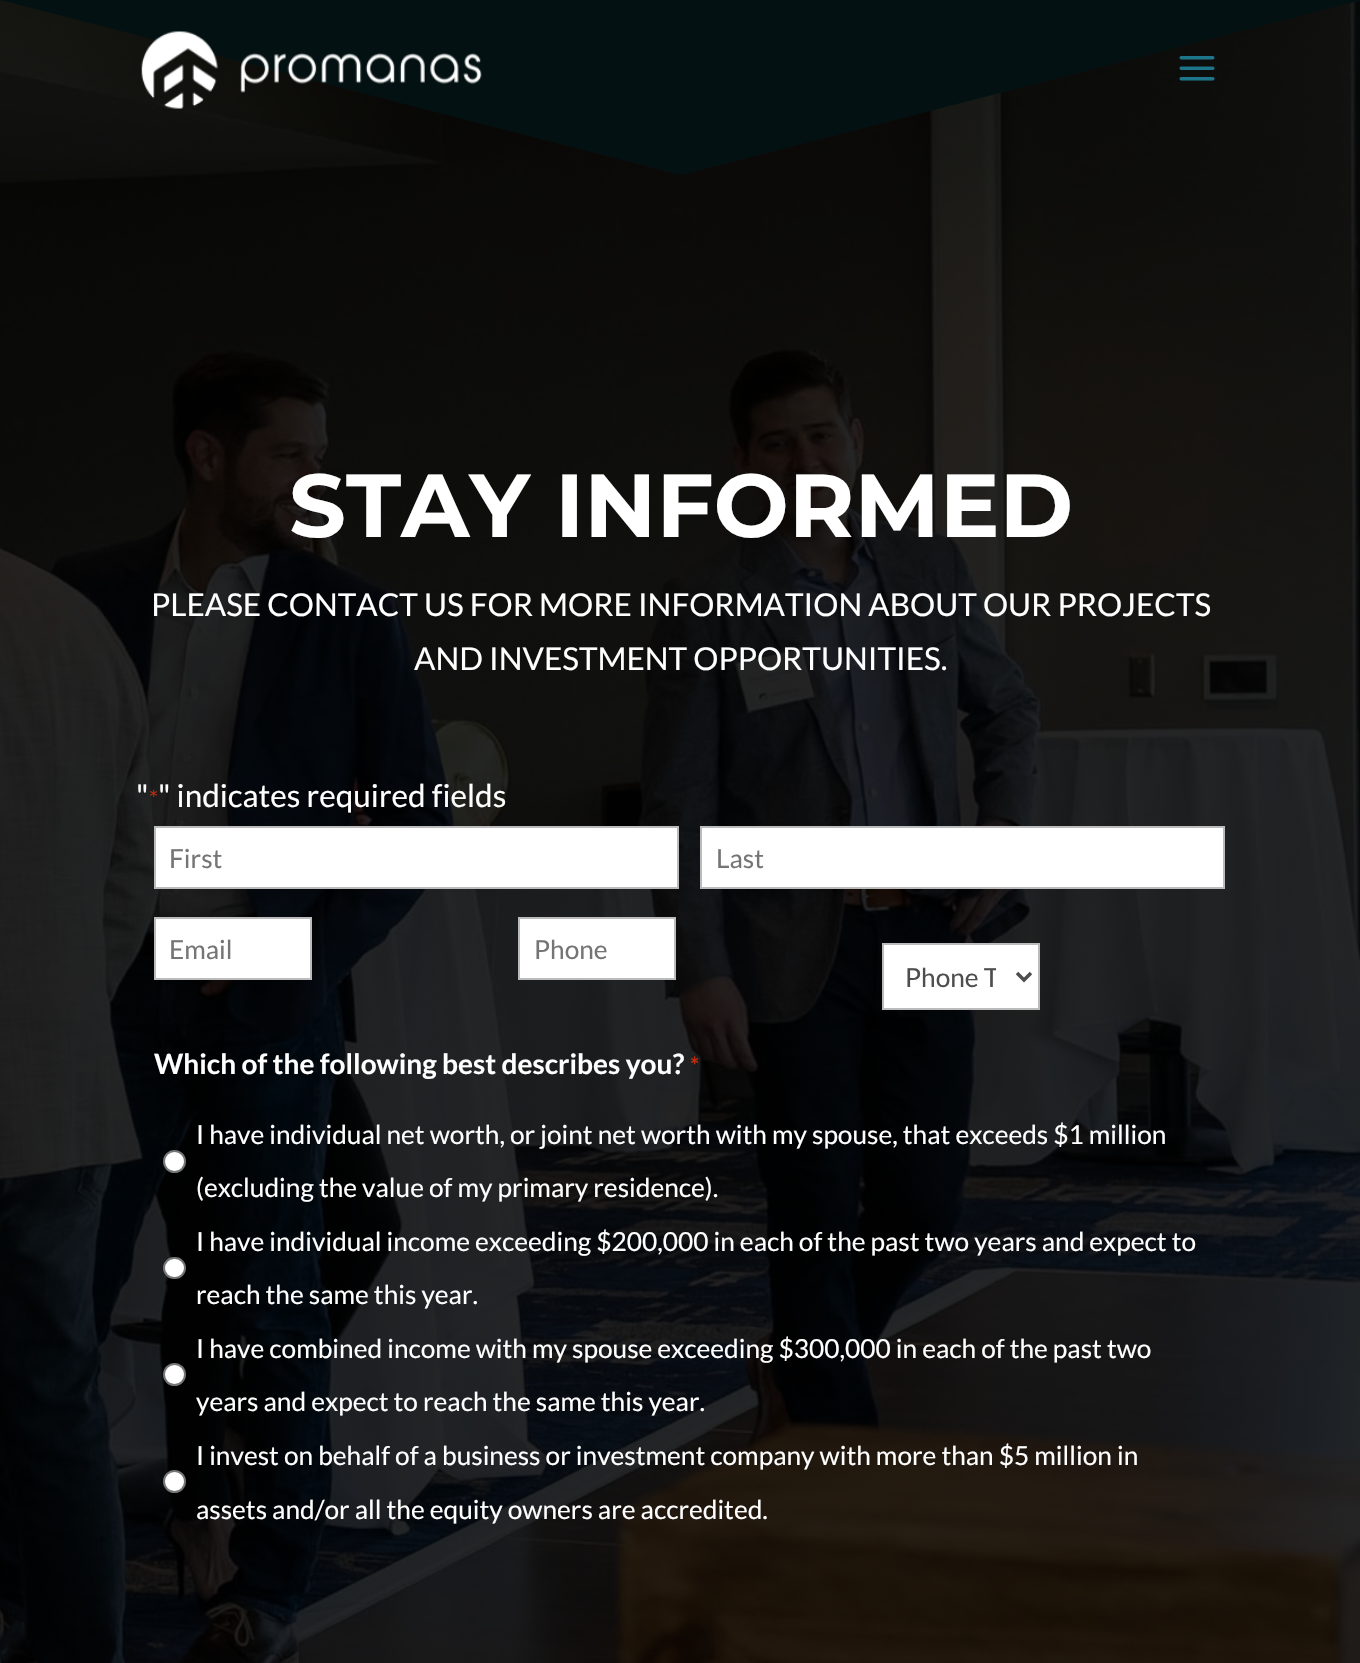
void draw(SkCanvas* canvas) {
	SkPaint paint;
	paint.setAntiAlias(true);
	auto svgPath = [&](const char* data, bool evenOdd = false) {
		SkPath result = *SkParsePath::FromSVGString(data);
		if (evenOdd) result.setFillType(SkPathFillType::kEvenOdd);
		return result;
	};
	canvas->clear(0xffffffff);
	canvas->drawImageRect(SkImages::DeferredFromEncodedData(SkData::MakeFromFileName("img3.png")), SkRect::MakeXYWH(0, 0, 1360, 1663), SkSamplingOptions());
	paint.setColor(0xff031112);
	canvas->drawPath(svgPath("M681 175L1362 0H0Z"), paint);
	canvas->drawImageRect(SkImages::DeferredFromEncodedData(SkData::MakeFromFileName("img1.png")), SkRect::MakeXYWH(141, 31, 341, 78), SkSamplingOptions());
	canvas->drawImageRect(SkImages::DeferredFromEncodedData(SkData::MakeFromFileName("img2.png")), SkRect::MakeXYWH(1179, 56, 36, 25), SkSamplingOptions());
	SkFont f1(fontMgr->matchFamilyStyle("Montserrat", SkFontStyle(100, SkFontStyle::kNormal_Width, SkFontStyle::kUpright_Slant)), 89.25);
	f1.setSubpixel(true);
	paint.setColor(0xffffffff);
	canvas->drawString("STAY INFORMED", 289, 537, f1, paint);
	SkFont f2(fontMgr->matchFamilyStyle("Lato", SkFontStyle::Normal()), 31.5);
	f2.setSubpixel(true);
	canvas->drawString("PLEASE CONTACT US FOR MORE INFORMATION ABOUT OUR PROJECTS", 151, 616, f2, paint);
	canvas->drawString("AND INVESTMENT OPPORTUNITIES.", 414, 670, f2, paint);
	canvas->drawString("\"", 136, 807, f2, paint);
	SkFont f3(fontMgr->matchFamilyStyle("Lato", SkFontStyle::Normal()), 23);
	f3.setSubpixel(true);
	paint.setColor(0xffc02b0a);
	canvas->drawString("*", 149, 807, f3, paint);
	paint.setColor(0xffffffff);
	canvas->drawString("\" indicates required fields", 158, 807, f2, paint);
	canvas->drawRect(SkRect::MakeXYWH(155, 827, 523, 61), paint);
	paint.setStroke(true);
	paint.setStrokeWidth(2);
	paint.setColor(0xffbbbbbb);
	canvas->drawRect(SkRect::MakeXYWH(155, 827, 523, 61), paint);
	SkFont f4(fontMgr->matchFamilyStyle("Lato", SkFontStyle::Normal()), 26.25);
	f4.setSubpixel(true);
	paint.setStroke(false);
	paint.setColor(0xff757575);
	canvas->drawString("First", 169, 868, f4, paint);
	paint.setColor(0xffffffff);
	canvas->drawRect(SkRect::MakeXYWH(701, 827, 523, 61), paint);
	paint.setStroke(true);
	paint.setColor(0xffbbbbbb);
	canvas->drawRect(SkRect::MakeXYWH(701, 827, 523, 61), paint);
	paint.setStroke(false);
	paint.setColor(0xff757575);
	canvas->drawString("Last", 716, 868, f4, paint);
	paint.setColor(0xffffffff);
	canvas->drawRect(SkRect::MakeXYWH(155, 918, 156, 61), paint);
	paint.setStroke(true);
	paint.setColor(0xffbbbbbb);
	canvas->drawRect(SkRect::MakeXYWH(155, 918, 156, 61), paint);
	paint.setStroke(false);
	paint.setColor(0xff757575);
	canvas->drawString("Email", 169, 959, f4, paint);
	paint.setColor(0xffffffff);
	canvas->drawRect(SkRect::MakeXYWH(519, 918, 156, 61), paint);
	paint.setStroke(true);
	paint.setColor(0xffbbbbbb);
	canvas->drawRect(SkRect::MakeXYWH(519, 918, 156, 61), paint);
	paint.setStroke(false);
	paint.setColor(0xff757575);
	canvas->drawString("Phone", 534, 959, f4, paint);
	paint.setColor(0xffffffff);
	canvas->drawRect(SkRect::MakeXYWH(883, 944, 156, 65), paint);
	paint.setStroke(true);
	paint.setColor(0xffbbbbbb);
	canvas->drawRect(SkRect::MakeXYWH(883, 944, 156, 65), paint);
	paint.setStrokeWidth(3.5);
	paint.setColor(0xff4e4e4e);
	canvas->drawPath(svgPath("M1017 973L1024 980L1031 973"), paint);
	canvas->save();
	canvas->clipRect(SkRect::MakeXYWH(905, 959, 91, 35));
	paint.setStroke(false);
	canvas->drawString("Phone T", 905, 987, f4, paint);
	canvas->restore();
	SkFont f5(fontMgr->matchFamilyStyle("Lato", SkFontStyle::Bold()), 28);
	f5.setSubpixel(true);
	paint.setColor(0xffffffff);
	canvas->drawString("Which of the following best describes you?", 154, 1074, f5, paint);
	SkFont f6(fontMgr->matchFamilyStyle("Lato", SkFontStyle::Bold()), 23);
	f6.setSubpixel(true);
	paint.setColor(0xffc02b0a);
	canvas->drawString("*", 690, 1074, f6, paint);
	paint.setColor(0xffffffff);
	canvas->drawCircle(174.5, 1161.5, 10.5, paint);
	paint.setStroke(true);
	paint.setStrokeWidth(2);
	paint.setColor(0xff767676);
	canvas->drawCircle(174.5, 1161.5, 10.5, paint);
	paint.setStroke(false);
	paint.setColor(0xffffffff);
	canvas->drawString("I have individual net worth, or joint net worth with my spouse, that exceeds $1 million", 196, 1144, f4, paint);
	canvas->drawString("(excluding the value of my primary residence).", 196, 1197, f4, paint);
	canvas->drawRoundRect(SkRect::MakeXYWH(164, 1258, 21, 20), 10, 10, paint);
	paint.setStroke(true);
	paint.setColor(0xff767676);
	canvas->drawRoundRect(SkRect::MakeXYWH(164, 1258, 21, 20), 10, 10, paint);
	paint.setStroke(false);
	paint.setColor(0xffffffff);
	canvas->drawString("I have individual income exceeding $200,000 in each of the past two years and expect to", 196, 1251, f4, paint);
	canvas->drawString("reach the same this year.", 196, 1304, f4, paint);
	canvas->drawCircle(174.5, 1374.5, 10.5, paint);
	paint.setStroke(true);
	paint.setColor(0xff767676);
	canvas->drawCircle(174.5, 1374.5, 10.5, paint);
	paint.setStroke(false);
	paint.setColor(0xffffffff);
	canvas->drawString("I have combined income with my spouse exceeding $300,000 in each of the past two", 196, 1358, f4, paint);
	canvas->drawString("years and expect to reach the same this year.", 196, 1411, f4, paint);
	canvas->drawCircle(174.5, 1481.5, 10.5, paint);
	paint.setStroke(true);
	paint.setColor(0xff767676);
	canvas->drawCircle(174.5, 1481.5, 10.5, paint);
	paint.setStroke(false);
	paint.setColor(0xffffffff);
	canvas->drawString("I invest on behalf of a business or investment company with more than $5 million in", 196, 1465, f4, paint);
	canvas->drawString("assets and/or all the equity owners are accredited.", 196, 1519, f4, paint);
}
